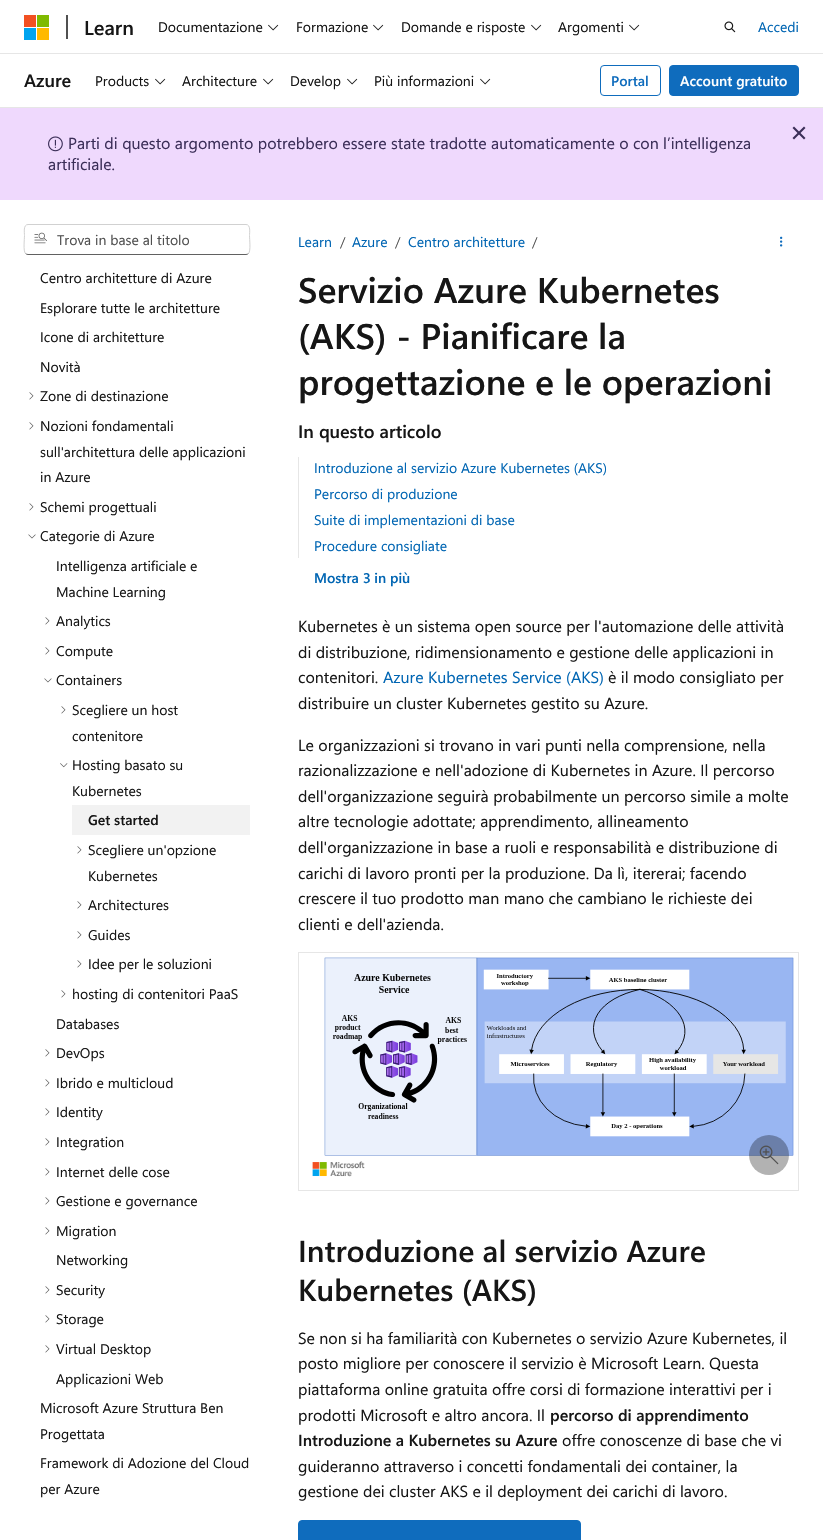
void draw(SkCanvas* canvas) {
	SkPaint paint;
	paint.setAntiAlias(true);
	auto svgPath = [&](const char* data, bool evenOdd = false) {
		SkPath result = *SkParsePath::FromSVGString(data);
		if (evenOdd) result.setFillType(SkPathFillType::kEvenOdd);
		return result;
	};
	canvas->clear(0xffffffff);
	paint.setColor(0xffe6e6e6);
	canvas->drawRect(SkRect::MakeXYWH(0, 53, 823, 1), paint);
	paint.setColor(0xfff25022);
	canvas->drawRect(SkRect::MakeXYWH(24, 15, 12, 12), paint);
	paint.setColor(0xff7fba00);
	canvas->drawRect(SkRect::MakeXYWH(37, 15, 12, 12), paint);
	paint.setColor(0xff00a4ef);
	canvas->drawRect(SkRect::MakeXYWH(24, 28, 12, 12), paint);
	paint.setColor(0xffffb900);
	canvas->drawRect(SkRect::MakeXYWH(37, 28, 12, 12), paint);
	paint.setColor(0xff505050);
	canvas->drawRect(SkRect::MakeXYWH(66, 15, 2, 24), paint);
	SkFont f1(fontMgr->matchFamilyStyle("Segoe UI", SkFontStyle(600, SkFontStyle::kNormal_Width, SkFontStyle::kUpright_Slant)), 20);
	f1.setSubpixel(true);
	paint.setColor(0xff161616);
	canvas->drawString("Learn", 84, 35, f1, paint);
	SkFont f2(fontMgr->matchFamilyStyle("Segoe UI", SkFontStyle::Normal()), 14);
	f2.setSubpixel(true);
	canvas->drawString("Documentazione", 158, 32, f2, paint);
	canvas->drawImageRect(SkImages::DeferredFromEncodedData(SkData::MakeFromFileName("img1.png")), SkRect::MakeXYWH(268, 24, 11, 7), SkSamplingOptions());
	canvas->drawString("Formazione", 296, 32, f2, paint);
	canvas->drawImageRect(SkImages::DeferredFromEncodedData(SkData::MakeFromFileName("img1.png")), SkRect::MakeXYWH(373, 24, 11, 7), SkSamplingOptions());
	canvas->drawString("Domande e risposte", 401, 32, f2, paint);
	canvas->drawImageRect(SkImages::DeferredFromEncodedData(SkData::MakeFromFileName("img1.png")), SkRect::MakeXYWH(531, 24, 11, 7), SkSamplingOptions());
	canvas->drawString("Argomenti", 558, 32, f2, paint);
	canvas->drawImageRect(SkImages::DeferredFromEncodedData(SkData::MakeFromFileName("img1.png")), SkRect::MakeXYWH(629, 24, 11, 7), SkSamplingOptions());
	canvas->drawImageRect(SkImages::DeferredFromEncodedData(SkData::MakeFromFileName("img2.png")), SkRect::MakeXYWH(724, 21, 12, 12), SkSamplingOptions());
	paint.setColor(0xff0065b3);
	canvas->drawString("Accedi", 758, 32, f2, paint);
	paint.setColor(0xffe6e6e6);
	canvas->drawRect(SkRect::MakeXYWH(0, 107, 823, 1), paint);
	SkFont f3(fontMgr->matchFamilyStyle("Segoe UI", SkFontStyle(600, SkFontStyle::kNormal_Width, SkFontStyle::kUpright_Slant)), 18);
	f3.setSubpixel(true);
	paint.setColor(0xff161616);
	canvas->drawString("Azure", 24, 87, f3, paint);
	canvas->drawString("Products", 95, 86, f2, paint);
	canvas->drawImageRect(SkImages::DeferredFromEncodedData(SkData::MakeFromFileName("img1.png")), SkRect::MakeXYWH(155, 78, 11, 7), SkSamplingOptions());
	canvas->drawString("Architecture", 182, 86, f2, paint);
	canvas->drawImageRect(SkImages::DeferredFromEncodedData(SkData::MakeFromFileName("img1.png")), SkRect::MakeXYWH(263, 78, 11, 7), SkSamplingOptions());
	canvas->drawString("Develop", 290, 86, f2, paint);
	canvas->drawImageRect(SkImages::DeferredFromEncodedData(SkData::MakeFromFileName("img1.png")), SkRect::MakeXYWH(347, 78, 11, 7), SkSamplingOptions());
	canvas->drawString("Più informazioni", 374, 86, f2, paint);
	canvas->drawImageRect(SkImages::DeferredFromEncodedData(SkData::MakeFromFileName("img1.png")), SkRect::MakeXYWH(480, 78, 11, 7), SkSamplingOptions());
	paint.setStroke(true);
	paint.setStrokeWidth(1);
	paint.setColor(0xff0f6cbd);
	canvas->drawRoundRect(SkRect::MakeXYWH(600.5, 65.5, 60, 30), 3.5, 3.5, paint);
	SkFont f4(fontMgr->matchFamilyStyle("Segoe UI", SkFontStyle(600, SkFontStyle::kNormal_Width, SkFontStyle::kUpright_Slant)), 14);
	f4.setSubpixel(true);
	paint.setStroke(false);
	canvas->drawString("Portal", 611, 86, f4, paint);
	canvas->drawRoundRect(SkRect::MakeXYWH(669.5, 65.5, 129, 30), 3.5, 3.5, paint);
	paint.setStroke(true);
	canvas->drawRoundRect(SkRect::MakeXYWH(669.5, 65.5, 129, 30), 3.5, 3.5, paint);
	paint.setStroke(false);
	paint.setColor(0xffffffff);
	canvas->drawString("Account gratuito", 680, 86, f4, paint);
	paint.setColor(0xffefd9fd);
	canvas->drawRect(SkRect::MakeXYWH(0, 108, 823, 92), paint);
	paint.setColor(0xff3b2e58);
	canvas->drawPath(svgPath("M794 126.5L805.5 138L804 139.5L792.5 128Z"), paint);
	canvas->drawPath(svgPath("M804 126.5L805.5 128L794 139.5L792.5 138Z"), paint);
	canvas->drawImageRect(SkImages::DeferredFromEncodedData(SkData::MakeFromFileName("img3.png")), SkRect::MakeXYWH(48, 136, 15, 16), SkSamplingOptions());
	SkFont f5(fontMgr->matchFamilyStyle("Segoe UI", SkFontStyle::Normal()), 16);
	f5.setSubpixel(true);
	canvas->drawString("Parti di questo argomento potrebbero essere state tradotte automaticamente o con l’intelligenza", 68, 149, f5, paint);
	canvas->drawString("artificiale.", 48, 170, f5, paint);
	paint.setStroke(true);
	paint.setColor(0xff616161);
	canvas->drawPath(svgPath("M248.5 253.5C248 254 247 254.5 246 254.5H28C27 254.5 26 254 25.5 253.5"), paint);
	paint.setColor(0xffd1d1d1);
	canvas->drawPath(svgPath("M25.5 253.5C23 251 24.5 239 24.5 235.5C24.5 233 23 224.5 28 224.5H246C251 224.5 249.5 233 249.5 235.5C249.5 239 251 251 248.5 253.5"), paint);
	canvas->drawImageRect(SkImages::DeferredFromEncodedData(SkData::MakeFromFileName("img4.png")), SkRect::MakeXYWH(34, 232, 13, 12), SkSamplingOptions());
	paint.setStroke(false);
	paint.setColor(0xff505050);
	canvas->drawString("Trova in base al titolo", 57, 245, f2, paint);
	paint.setColor(0xff161616);
	canvas->drawString("Centro architetture di Azure", 40, 283, f2, paint);
	canvas->drawString("Esplorare tutte le architetture", 40, 313, f2, paint);
	canvas->drawString("Icone di architetture", 40, 342, f2, paint);
	canvas->drawString("Novità", 40, 372, f2, paint);
	canvas->drawImageRect(SkImages::DeferredFromEncodedData(SkData::MakeFromFileName("img5.png")), SkRect::MakeXYWH(29, 392, 5, 8), SkSamplingOptions());
	canvas->drawString("Zone di destinazione", 40, 401, f2, paint);
	canvas->drawImageRect(SkImages::DeferredFromEncodedData(SkData::MakeFromFileName("img5.png")), SkRect::MakeXYWH(29, 422, 5, 8), SkSamplingOptions());
	canvas->drawString("Nozioni fondamentali", 40, 431, f2, paint);
	canvas->drawString("sull'architettura delle applicazioni", 40, 457, f2, paint);
	canvas->drawString("in Azure", 40, 482, f2, paint);
	canvas->drawImageRect(SkImages::DeferredFromEncodedData(SkData::MakeFromFileName("img5.png")), SkRect::MakeXYWH(29, 503, 5, 8), SkSamplingOptions());
	canvas->drawString("Schemi progettuali", 40, 512, f2, paint);
	canvas->drawImageRect(SkImages::DeferredFromEncodedData(SkData::MakeFromFileName("img6.png")), SkRect::MakeXYWH(28, 534, 8, 5), SkSamplingOptions());
	canvas->drawString("Categorie di Azure", 40, 541, f2, paint);
	canvas->drawString("Intelligenza artificiale e", 56, 571, f2, paint);
	canvas->drawString("Machine Learning", 56, 597, f2, paint);
	canvas->drawImageRect(SkImages::DeferredFromEncodedData(SkData::MakeFromFileName("img5.png")), SkRect::MakeXYWH(45, 617, 5, 8), SkSamplingOptions());
	canvas->drawString("Analytics", 56, 626, f2, paint);
	canvas->drawImageRect(SkImages::DeferredFromEncodedData(SkData::MakeFromFileName("img5.png")), SkRect::MakeXYWH(45, 647, 5, 8), SkSamplingOptions());
	canvas->drawString("Compute", 56, 656, f2, paint);
	canvas->drawImageRect(SkImages::DeferredFromEncodedData(SkData::MakeFromFileName("img7.png")), SkRect::MakeXYWH(44, 678, 8, 5), SkSamplingOptions());
	canvas->drawString("Containers", 56, 685, f2, paint);
	canvas->drawImageRect(SkImages::DeferredFromEncodedData(SkData::MakeFromFileName("img5.png")), SkRect::MakeXYWH(61, 706, 5, 8), SkSamplingOptions());
	canvas->drawString("Scegliere un host", 72, 715, f2, paint);
	canvas->drawString("contenitore", 72, 741, f2, paint);
	canvas->drawImageRect(SkImages::DeferredFromEncodedData(SkData::MakeFromFileName("img8.png")), SkRect::MakeXYWH(60, 763, 8, 5), SkSamplingOptions());
	canvas->drawString("Hosting basato su", 72, 770, f2, paint);
	canvas->drawString("Kubernetes", 72, 796, f2, paint);
	paint.setColor(0xfff2f2f2);
	canvas->drawRect(SkRect::MakeXYWH(72, 805, 178, 30), paint);
	paint.setColor(0xff161616);
	canvas->drawString("Get started", 88, 825, f4, paint);
	canvas->drawImageRect(SkImages::DeferredFromEncodedData(SkData::MakeFromFileName("img5.png")), SkRect::MakeXYWH(77, 846, 5, 8), SkSamplingOptions());
	canvas->drawString("Scegliere un'opzione", 88, 855, f2, paint);
	canvas->drawString("Kubernetes", 88, 881, f2, paint);
	canvas->drawImageRect(SkImages::DeferredFromEncodedData(SkData::MakeFromFileName("img5.png")), SkRect::MakeXYWH(77, 901, 5, 8), SkSamplingOptions());
	canvas->drawString("Architectures", 88, 910, f2, paint);
	canvas->drawImageRect(SkImages::DeferredFromEncodedData(SkData::MakeFromFileName("img5.png")), SkRect::MakeXYWH(77, 931, 5, 8), SkSamplingOptions());
	canvas->drawString("Guides", 88, 940, f2, paint);
	canvas->drawImageRect(SkImages::DeferredFromEncodedData(SkData::MakeFromFileName("img5.png")), SkRect::MakeXYWH(77, 960, 5, 8), SkSamplingOptions());
	canvas->drawString("Idee per le soluzioni", 88, 969, f2, paint);
	canvas->drawImageRect(SkImages::DeferredFromEncodedData(SkData::MakeFromFileName("img5.png")), SkRect::MakeXYWH(61, 990, 5, 8), SkSamplingOptions());
	canvas->drawString("hosting di contenitori PaaS", 72, 999, f2, paint);
	canvas->drawString("Databases", 56, 1029, f2, paint);
	canvas->drawImageRect(SkImages::DeferredFromEncodedData(SkData::MakeFromFileName("img5.png")), SkRect::MakeXYWH(45, 1049, 5, 8), SkSamplingOptions());
	canvas->drawString("DevOps", 56, 1058, f2, paint);
	canvas->drawImageRect(SkImages::DeferredFromEncodedData(SkData::MakeFromFileName("img5.png")), SkRect::MakeXYWH(45, 1079, 5, 8), SkSamplingOptions());
	canvas->drawString("Ibrido e multicloud", 56, 1088, f2, paint);
	canvas->drawImageRect(SkImages::DeferredFromEncodedData(SkData::MakeFromFileName("img5.png")), SkRect::MakeXYWH(45, 1108, 5, 8), SkSamplingOptions());
	canvas->drawString("Identity", 56, 1117, f2, paint);
	canvas->drawImageRect(SkImages::DeferredFromEncodedData(SkData::MakeFromFileName("img5.png")), SkRect::MakeXYWH(45, 1138, 5, 8), SkSamplingOptions());
	canvas->drawString("Integration", 56, 1147, f2, paint);
	canvas->drawImageRect(SkImages::DeferredFromEncodedData(SkData::MakeFromFileName("img5.png")), SkRect::MakeXYWH(45, 1168, 5, 8), SkSamplingOptions());
	canvas->drawString("Internet delle cose", 56, 1177, f2, paint);
	canvas->drawImageRect(SkImages::DeferredFromEncodedData(SkData::MakeFromFileName("img5.png")), SkRect::MakeXYWH(45, 1197, 5, 8), SkSamplingOptions());
	canvas->drawString("Gestione e governance", 56, 1206, f2, paint);
	canvas->drawImageRect(SkImages::DeferredFromEncodedData(SkData::MakeFromFileName("img5.png")), SkRect::MakeXYWH(45, 1227, 5, 8), SkSamplingOptions());
	canvas->drawString("Migration", 56, 1236, f2, paint);
	canvas->drawString("Networking", 56, 1265, f2, paint);
	canvas->drawImageRect(SkImages::DeferredFromEncodedData(SkData::MakeFromFileName("img5.png")), SkRect::MakeXYWH(45, 1286, 5, 8), SkSamplingOptions());
	canvas->drawString("Security", 56, 1295, f2, paint);
	canvas->drawImageRect(SkImages::DeferredFromEncodedData(SkData::MakeFromFileName("img5.png")), SkRect::MakeXYWH(45, 1315, 5, 8), SkSamplingOptions());
	canvas->drawString("Storage", 56, 1324, f2, paint);
	canvas->drawImageRect(SkImages::DeferredFromEncodedData(SkData::MakeFromFileName("img5.png")), SkRect::MakeXYWH(45, 1345, 5, 8), SkSamplingOptions());
	canvas->drawString("Virtual Desktop", 56, 1354, f2, paint);
	canvas->drawString("Applicazioni Web", 56, 1384, f2, paint);
	canvas->drawString("Microsoft Azure Struttura Ben", 40, 1413, f2, paint);
	canvas->drawString("Progettata", 40, 1439, f2, paint);
	canvas->drawString("Framework di Adozione del Cloud", 40, 1468, f2, paint);
	canvas->drawString("per Azure", 40, 1494, f2, paint);
	paint.setColor(0xff0065b3);
	canvas->drawString("Learn", 298, 247, f2, paint);
	paint.setColor(0xff505050);
	canvas->drawString("/", 340, 247, f2, paint);
	paint.setColor(0xff0065b3);
	canvas->drawString("Azure", 352, 247, f2, paint);
	paint.setColor(0xff505050);
	canvas->drawString("/", 395, 247, f2, paint);
	paint.setColor(0xff0065b3);
	canvas->drawString("Centro architetture", 408, 247, f2, paint);
	paint.setColor(0xff505050);
	canvas->drawString("/", 532, 247, f2, paint);
	canvas->drawImageRect(SkImages::DeferredFromEncodedData(SkData::MakeFromFileName("img9.png")), SkRect::MakeXYWH(780, 236, 3, 11), SkSamplingOptions());
	SkFont f6(fontMgr->matchFamilyStyle("Segoe UI", SkFontStyle(600, SkFontStyle::kNormal_Width, SkFontStyle::kUpright_Slant)), 35.6);
	f6.setSubpixel(true);
	paint.setColor(0xff161616);
	canvas->drawString("Servizio Azure Kubernetes", 298, 303, f6, paint);
	canvas->drawString("(AKS) - Pianificare la", 298, 349, f6, paint);
	canvas->drawString("progettazione e le operazioni", 298, 395, f6, paint);
	canvas->drawString("In questo articolo", 298, 438, f3, paint);
	paint.setColor(0xffe6e6e6);
	canvas->drawRect(SkRect::MakeXYWH(298, 457, 1, 101), paint);
	paint.setColor(0xff0065b3);
	canvas->drawString("Introduzione al servizio Azure Kubernetes (AKS)", 314, 473, f2, paint);
	canvas->drawString("Percorso di produzione", 314, 499, f2, paint);
	canvas->drawString("Suite di implementazioni di base", 314, 525, f2, paint);
	canvas->drawString("Procedure consigliate", 314, 551, f2, paint);
	canvas->drawString("Mostra 3 in più", 314, 583, f4, paint);
	paint.setColor(0xff161616);
	canvas->drawString("Kubernetes è un sistema open source per l'automazione delle attività", 298, 632, f5, paint);
	canvas->drawString("di distribuzione, ridimensionamento e gestione delle applicazioni in", 298, 658, f5, paint);
	canvas->drawString("contenitori.", 298, 683, f5, paint);
	paint.setColor(0xff0065b3);
	canvas->drawString("Azure Kubernetes Service (AKS)", 383, 683, f5, paint);
	paint.setColor(0xff161616);
	canvas->drawString("è il modo consigliato per", 608, 683, f5, paint);
	canvas->drawString("distribuire un cluster Kubernetes gestito su Azure.", 298, 709, f5, paint);
	canvas->drawString("Le organizzazioni si trovano in vari punti nella comprensione, nella", 298, 751, f5, paint);
	canvas->drawString("razionalizzazione e nell'adozione di Kubernetes in Azure. Il percorso", 298, 776, f5, paint);
	canvas->drawString("dell'organizzazione seguirà probabilmente un percorso simile a molte", 298, 802, f5, paint);
	canvas->drawString("altre tecnologie adottate; apprendimento, allineamento", 298, 827, f5, paint);
	canvas->drawString("dell'organizzazione in base a ruoli e responsabilità e distribuzione di", 298, 853, f5, paint);
	canvas->drawString("carichi di lavoro pronti per la produzione. Da lì, itererai; facendo", 298, 879, f5, paint);
	canvas->drawString("crescere il tuo prodotto man mano che cambiano le richieste dei", 298, 904, f5, paint);
	canvas->drawString("clienti e dell'azienda.", 298, 930, f5, paint);
	paint.setStroke(true);
	paint.setColor(0xffe6e6e6);
	canvas->drawRect(SkRect::MakeXYWH(298.5, 952.5, 500, 238), paint);
	canvas->drawImageRect(SkImages::DeferredFromEncodedData(SkData::MakeFromFileName("img10.png")), SkRect::MakeXYWH(312, 957, 482, 220), SkSamplingOptions());
	paint.setStroke(false);
	paint.setColor(0x4d000000);
	canvas->drawCircle(769, 1155, 20, paint);
	canvas->drawImageRect(SkImages::DeferredFromEncodedData(SkData::MakeFromFileName("img11.png")), SkRect::MakeXYWH(759, 1145, 20, 20), SkSamplingOptions());
	SkFont f7(fontMgr->matchFamilyStyle("Segoe UI", SkFontStyle(600, SkFontStyle::kNormal_Width, SkFontStyle::kUpright_Slant)), 30.25);
	f7.setSubpixel(true);
	paint.setColor(0xff161616);
	canvas->drawString("Introduzione al servizio Azure", 298, 1262, f7, paint);
	canvas->drawString("Kubernetes (AKS)", 298, 1301, f7, paint);
	canvas->drawString("Se non si ha familiarità con Kubernetes o servizio Azure Kubernetes, il", 298, 1344, f5, paint);
	canvas->drawString("posto migliore per conoscere il servizio è Microsoft Learn. Questa", 298, 1369, f5, paint);
	canvas->drawString("piattaforma online gratuita offre corsi di formazione interattivi per i", 298, 1395, f5, paint);
	canvas->drawString("prodotti Microsoft e altro ancora. Il", 298, 1421, f5, paint);
	SkFont f8(fontMgr->matchFamilyStyle("Segoe UI", SkFontStyle(600, SkFontStyle::kNormal_Width, SkFontStyle::kUpright_Slant)), 16);
	f8.setSubpixel(true);
	canvas->drawString("percorso di apprendimento", 550, 1421, f8, paint);
	canvas->drawString("Introduzione a Kubernetes su Azure", 298, 1446, f8, paint);
	canvas->drawString("offre conoscenze di base che vi", 562, 1446, f5, paint);
	canvas->drawString("guideranno attraverso i concetti fondamentali dei container, la", 298, 1472, f5, paint);
	canvas->drawString("gestione dei cluster AKS e il deployment dei carichi di lavoro.", 298, 1497, f5, paint);
	paint.setColor(0xff0f6cbd);
	canvas->drawRoundRect(SkRect::MakeXYWH(298.5, 1520.5, 282, 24), 3.5, 3.5, paint);
	paint.setStroke(true);
	canvas->drawRoundRect(SkRect::MakeXYWH(298.5, 1520.5, 282, 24), 3.5, 3.5, paint);
}
